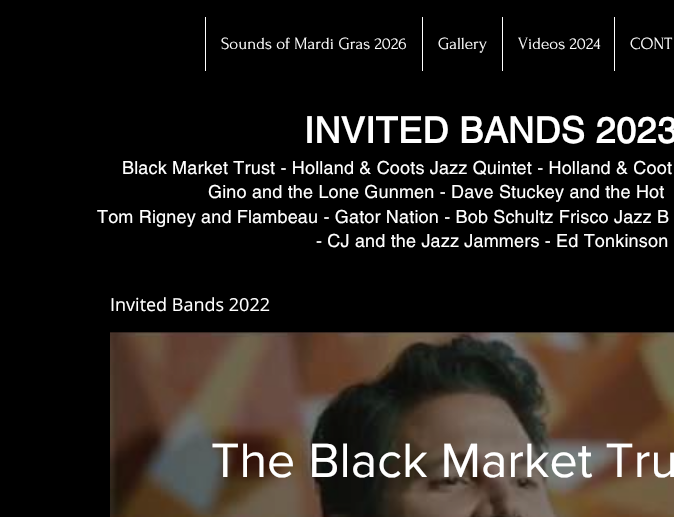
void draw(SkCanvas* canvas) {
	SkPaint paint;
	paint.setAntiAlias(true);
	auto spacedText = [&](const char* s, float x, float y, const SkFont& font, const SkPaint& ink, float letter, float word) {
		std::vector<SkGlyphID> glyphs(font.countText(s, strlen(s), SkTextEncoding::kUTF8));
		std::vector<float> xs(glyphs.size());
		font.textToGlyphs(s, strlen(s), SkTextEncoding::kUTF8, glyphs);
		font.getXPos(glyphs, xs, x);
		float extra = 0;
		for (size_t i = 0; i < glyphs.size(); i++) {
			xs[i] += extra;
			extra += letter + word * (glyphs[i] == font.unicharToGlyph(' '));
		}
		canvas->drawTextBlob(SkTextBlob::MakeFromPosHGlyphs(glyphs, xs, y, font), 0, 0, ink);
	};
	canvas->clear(0xff000000);
	paint.setColor(0xffffffff);
	canvas->drawRect(SkRect::MakeXYWH(205, 17, 1, 54), paint);
	SkFont f1(fontMgr->matchFamilyStyle("Forum", SkFontStyle::Normal()), 17);
	f1.setSubpixel(true);
	canvas->drawString("Sounds of Mardi Gras 2026", 221, 49, f1, paint);
	canvas->drawRect(SkRect::MakeXYWH(422, 17, 1, 54), paint);
	canvas->drawString("Gallery", 438, 49, f1, paint);
	canvas->drawRect(SkRect::MakeXYWH(502, 17, 1, 54), paint);
	canvas->drawString("Videos 2024", 518, 49, f1, paint);
	canvas->drawRect(SkRect::MakeXYWH(614, 17, 1, 54), paint);
	canvas->drawString("CONT", 630, 49, f1, paint);
	SkFont f2(fontMgr->matchFamilyStyle("helvetica", SkFontStyle::Bold()), 36);
	f2.setSubpixel(true);
	spacedText("INVITED BANDS 2023", 304, 143, f2, paint, 0.4, 0);
	SkFont f3(fontMgr->matchFamilyStyle("helvetica", SkFontStyle::Normal()), 18);
	f3.setSubpixel(true);
	spacedText("Black Market Trust - Holland & Coots Jazz Quintet - Holland & Coot", 122, 174, f3, paint, 0.18, 0);
	spacedText("Gino and the Lone Gunmen - Dave Stuckey and the Hot", 208, 198, f3, paint, 0.18, 0);
	spacedText("Tom Rigney and Flambeau - Gator Nation - Bob Schultz Frisco Jazz B", 97, 223, f3, paint, 0.18, 0);
	spacedText("- CJ and the Jazz Jammers - Ed Tonkinson", 316, 247, f3, paint, 0.18, 0);
	SkFont f4(fontMgr->matchFamilyStyle("Open Sans", SkFontStyle::Normal()), 18);
	f4.setSubpixel(true);
	canvas->drawString("Invited Bands 2022", 110, 311, f4, paint);
	canvas->drawImageRect(SkImages::DeferredFromEncodedData(SkData::MakeFromFileName("img1.png")), SkRect::MakeXYWH(110, 423, 564, 94), SkSamplingOptions());
	canvas->drawImageRect(SkImages::DeferredFromEncodedData(SkData::MakeFromFileName("img2.png")), SkRect::MakeXYWH(110, 332, 564, 91), SkSamplingOptions());
	SkFont f5(fontMgr->matchFamilyStyle("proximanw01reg", SkFontStyle::Normal()), 50);
	f5.setSubpixel(true);
	canvas->drawString("The Black Market Tru", 211, 477, f5, paint);
}
